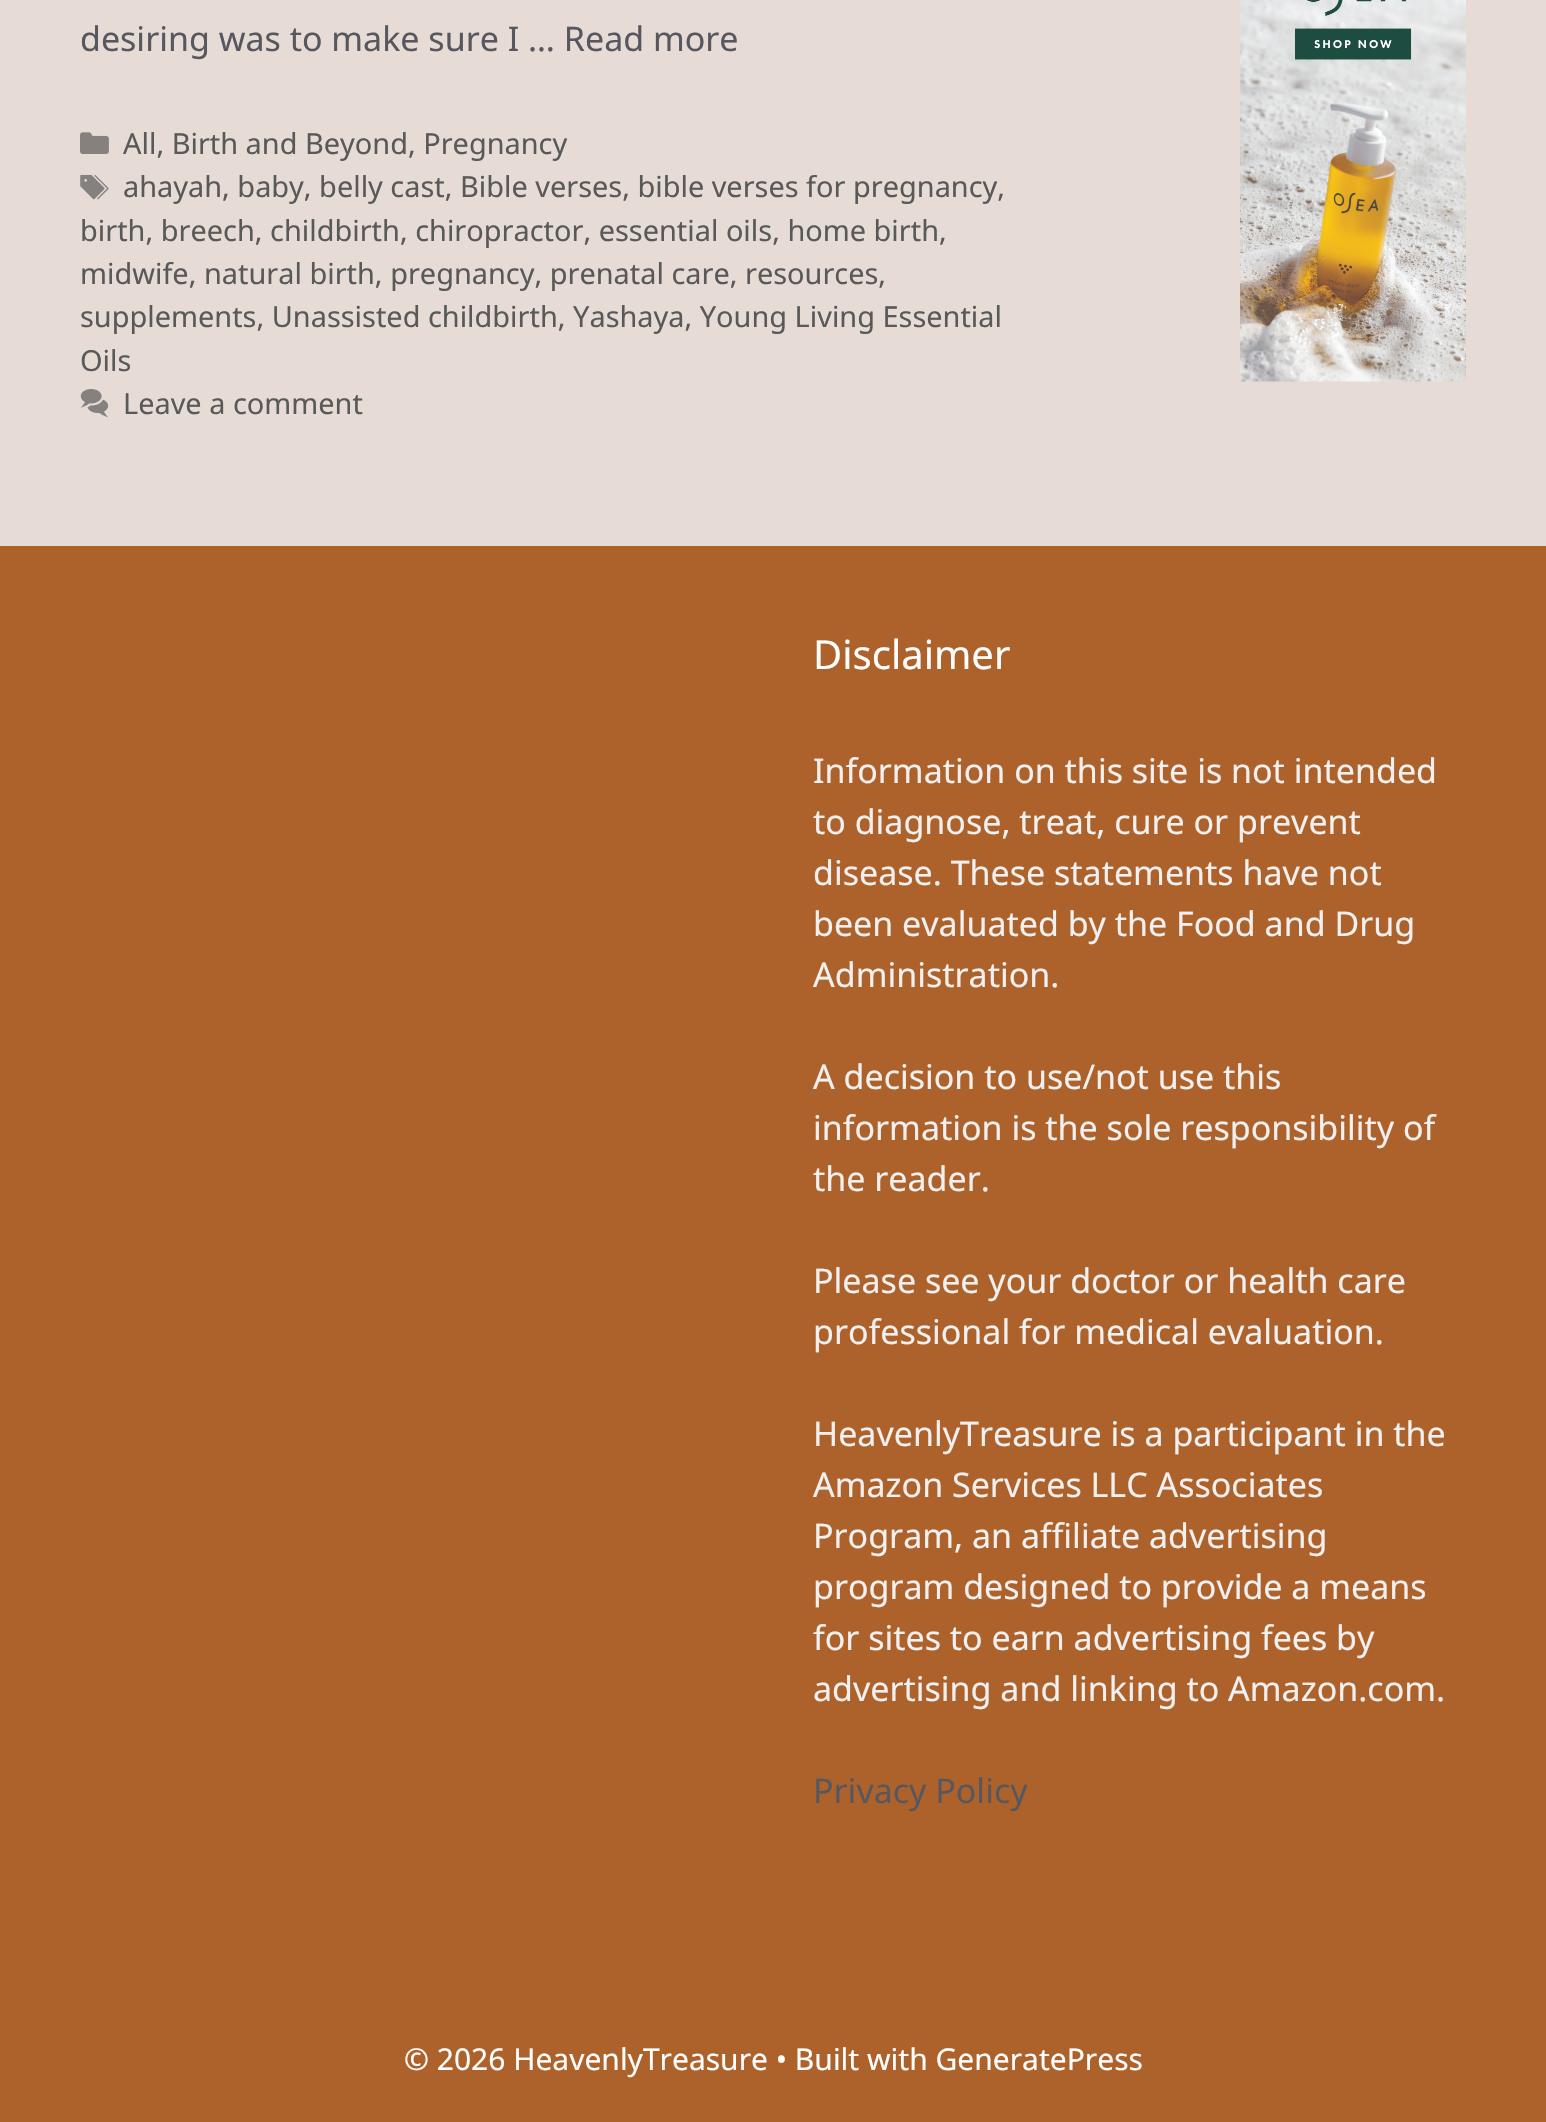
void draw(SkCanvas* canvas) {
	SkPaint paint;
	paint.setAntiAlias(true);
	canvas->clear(0xffe6dcd5);
	SkFont f1(fontMgr->matchFamilyStyle("Noto Sans", SkFontStyle::Normal()), 34);
	f1.setSubpixel(true);
	paint.setColor(0xff575760);
	canvas->drawString("desiring was to make sure I … Read more", 80, 51, f1, paint);
	canvas->drawImageRect(SkImages::DeferredFromEncodedData(SkData::MakeFromFileName("img1.png")), SkRect::MakeXYWH(80, 132, 29, 22), SkSamplingOptions());
	SkFont f2(fontMgr->matchFamilyStyle("Noto Sans", SkFontStyle::Normal()), 28.9);
	f2.setSubpixel(true);
	paint.setColor(0xff595959);
	canvas->drawString("All, Birth and Beyond, Pregnancy", 123, 154, f2, paint);
	canvas->drawImageRect(SkImages::DeferredFromEncodedData(SkData::MakeFromFileName("img2.png")), SkRect::MakeXYWH(80, 174, 29, 26), SkSamplingOptions());
	canvas->drawString("ahayah, baby, belly cast, Bible verses, bible verses for pregnancy,", 123, 197, f2, paint);
	canvas->drawString("birth, breech, childbirth, chiropractor, essential oils, home birth,", 80, 241, f2, paint);
	canvas->drawString("midwife, natural birth, pregnancy, prenatal care, resources,", 80, 284, f2, paint);
	canvas->drawString("supplements, Unassisted childbirth, Yashaya, Young Living Essential", 80, 327, f2, paint);
	canvas->drawString("Oils", 80, 371, f2, paint);
	canvas->drawImageRect(SkImages::DeferredFromEncodedData(SkData::MakeFromFileName("img3.png")), SkRect::MakeXYWH(80, 389, 29, 29), SkSamplingOptions());
	canvas->drawString("Leave a comment", 123, 414, f2, paint);
	canvas->drawImageRect(SkImages::DeferredFromEncodedData(SkData::MakeFromFileName("img4.png")), SkRect::MakeXYWH(1240, 0, 226, 382), SkSamplingOptions());
	paint.setColor(0xffae622b);
	canvas->drawRect(SkRect::MakeXYWH(0, 546, 1546, 1576), paint);
	SkFont f3(fontMgr->matchFamilyStyle("Noto Sans", SkFontStyle::Normal()), 40);
	f3.setSubpixel(true);
	paint.setColor(0xffffffff);
	canvas->drawString("Disclaimer", 813, 669, f3, paint);
	paint.setColor(0xfff0f0f0);
	canvas->drawString("Information on this site is not intended", 813, 783, f1, paint);
	canvas->drawString("to diagnose, treat, cure or prevent", 813, 834, f1, paint);
	canvas->drawString("disease. These statements have not", 813, 885, f1, paint);
	canvas->drawString("been evaluated by the Food and Drug", 813, 936, f1, paint);
	canvas->drawString("Administration.", 813, 987, f1, paint);
	canvas->drawString("A decision to use/not use this", 813, 1089, f1, paint);
	canvas->drawString("information is the sole responsibility of", 813, 1140, f1, paint);
	canvas->drawString("the reader.", 813, 1191, f1, paint);
	canvas->drawString("Please see your doctor or health care", 813, 1293, f1, paint);
	canvas->drawString("professional for medical evaluation.", 813, 1344, f1, paint);
	canvas->drawString("HeavenlyTreasure is a participant in the", 813, 1446, f1, paint);
	canvas->drawString("Amazon Services LLC Associates", 813, 1497, f1, paint);
	canvas->drawString("Program, an affiliate advertising", 813, 1548, f1, paint);
	canvas->drawString("program designed to provide a means", 813, 1599, f1, paint);
	canvas->drawString("for sites to earn advertising fees by", 813, 1650, f1, paint);
	canvas->drawString("advertising and linking to Amazon.com.", 813, 1701, f1, paint);
	paint.setColor(0xff575760);
	canvas->drawString("Privacy Policy", 813, 1803, f1, paint);
	SkFont f4(fontMgr->matchFamilyStyle("Noto Sans", SkFontStyle::Normal()), 30);
	f4.setSubpixel(true);
	paint.setColor(0xffffffff);
	canvas->drawString("© 2026 HeavenlyTreasure • Built with GeneratePress", 404, 2070, f4, paint);
}
